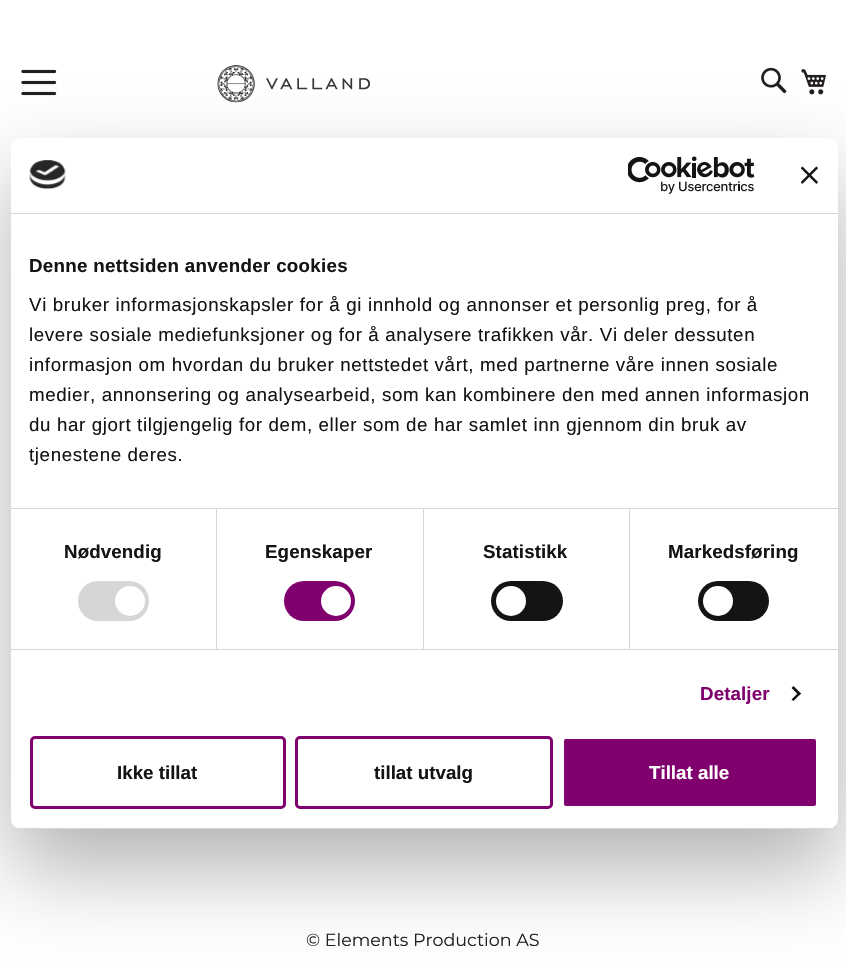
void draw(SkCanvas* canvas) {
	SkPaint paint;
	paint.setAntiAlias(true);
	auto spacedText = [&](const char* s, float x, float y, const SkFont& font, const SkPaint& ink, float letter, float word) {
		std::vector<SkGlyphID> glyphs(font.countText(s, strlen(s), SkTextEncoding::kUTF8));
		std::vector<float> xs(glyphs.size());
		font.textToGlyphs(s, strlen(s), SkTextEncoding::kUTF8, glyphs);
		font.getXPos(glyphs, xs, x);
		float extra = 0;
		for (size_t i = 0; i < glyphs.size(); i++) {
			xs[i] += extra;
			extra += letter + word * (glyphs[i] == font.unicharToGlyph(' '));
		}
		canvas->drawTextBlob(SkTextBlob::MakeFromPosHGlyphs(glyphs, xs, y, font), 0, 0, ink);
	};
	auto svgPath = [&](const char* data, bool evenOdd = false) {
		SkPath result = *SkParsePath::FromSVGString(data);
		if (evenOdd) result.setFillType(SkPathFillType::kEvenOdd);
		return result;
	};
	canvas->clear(0xffffffff);
	canvas->drawImageRect(SkImages::DeferredFromEncodedData(SkData::MakeFromFileName("img4.png")), SkRect::MakeXYWH(21, 69, 36, 27), SkSamplingOptions());
	canvas->drawImageRect(SkImages::DeferredFromEncodedData(SkData::MakeFromFileName("img5.png")), SkRect::MakeXYWH(217, 65, 153, 38), SkSamplingOptions());
	canvas->drawImageRect(SkImages::DeferredFromEncodedData(SkData::MakeFromFileName("img6.png")), SkRect::MakeXYWH(761, 67, 26, 27), SkSamplingOptions());
	canvas->drawImageRect(SkImages::DeferredFromEncodedData(SkData::MakeFromFileName("img7.png")), SkRect::MakeXYWH(801, 69, 25, 26), SkSamplingOptions());
	paint.setColor(0x4d000000);
	paint.setMaskFilter(SkMaskFilter::MakeBlur(kNormal_SkBlurStyle, 42.5));
	canvas->drawRoundRect(SkRect::MakeXYWH(11, 178, 827, 691), 10, 10, paint);
	paint.setMaskFilter(nullptr);
	paint.setColor(0xffffffff);
	canvas->drawRoundRect(SkRect::MakeXYWH(11, 138, 827, 691), 10, 10, paint);
	paint.setColor(0xffd6d6d6);
	canvas->drawRect(SkRect::MakeXYWH(11, 213, 827, 1), paint);
	canvas->drawImageRect(SkImages::DeferredFromEncodedData(SkData::MakeFromFileName("img1.png")), SkRect::MakeXYWH(29, 160, 37, 30), SkSamplingOptions());
	canvas->drawImageRect(SkImages::DeferredFromEncodedData(SkData::MakeFromFileName("img2.png")), SkRect::MakeXYWH(628, 156, 127, 38), SkSamplingOptions());
	canvas->drawImageRect(SkImages::DeferredFromEncodedData(SkData::MakeFromFileName("img3.png")), SkRect::MakeXYWH(801, 166, 17, 18), SkSamplingOptions());
	canvas->drawRect(SkRect::MakeXYWH(11, 508, 827, 1), paint);
	SkFont f1(fontMgr->matchFamilyStyle("Liberation Sans", SkFontStyle::Bold()), 18.75);
	f1.setSubpixel(true);
	paint.setColor(0xff141414);
	spacedText("Denne nettsiden anvender cookies", 29, 272, f1, paint, 0.3, 0);
	SkFont f2(fontMgr->matchFamilyStyle("Liberation Sans", SkFontStyle::Normal()), 18.75);
	f2.setSubpixel(true);
	spacedText("Vi bruker informasjonskapsler for å gi innhold og annonser et personlig preg, for å", 29, 311, f2, paint, 0.62, 0);
	spacedText("levere sosiale mediefunksjoner og for å analysere trafikken vår. Vi deler dessuten", 29, 341, f2, paint, 0.62, 0);
	spacedText("informasjon om hvordan du bruker nettstedet vårt, med partnerne våre innen sosiale", 29, 371, f2, paint, 0.62, 0);
	spacedText("medier, annonsering og analysearbeid, som kan kombinere den med annen informasjon", 29, 401, f2, paint, 0.62, 0);
	spacedText("du har gjort tilgjengelig for dem, eller som de har samlet inn gjennom din bruk av", 29, 431, f2, paint, 0.62, 0);
	spacedText("tjenestene deres.", 29, 461, f2, paint, 0.62, 0);
	paint.setColor(0xffd6d6d6);
	canvas->drawRect(SkRect::MakeXYWH(11, 649, 827, 1), paint);
	canvas->drawRect(SkRect::MakeXYWH(216, 509, 1, 140), paint);
	paint.setColor(0xff141414);
	spacedText("Nødvendig", 64, 558, f1, paint, 0.1, 0);
	paint.setColor(0xffd6d6d6);
	canvas->drawRoundRect(SkRect::MakeXYWH(78, 581, 71, 40), 20, 20, paint);
	paint.setColor(0xffffffff);
	canvas->drawCircle(130, 601, 15, paint);
	paint.setColor(0xffd6d6d6);
	canvas->drawRect(SkRect::MakeXYWH(423, 509, 1, 140), paint);
	paint.setColor(0xff141414);
	spacedText("Egenskaper", 265, 558, f1, paint, 0.1, 0);
	paint.setColor(0xff80006e);
	canvas->drawRoundRect(SkRect::MakeXYWH(284, 581, 71, 40), 20, 20, paint);
	paint.setColor(0xffffffff);
	canvas->drawCircle(336, 601, 15, paint);
	paint.setColor(0xffd6d6d6);
	canvas->drawRect(SkRect::MakeXYWH(629, 509, 1, 140), paint);
	paint.setColor(0xff141414);
	spacedText("Statistikk", 483, 558, f1, paint, 0.1, 0);
	canvas->drawRoundRect(SkRect::MakeXYWH(491, 581, 72, 40), 20, 20, paint);
	paint.setColor(0xffffffff);
	canvas->drawCircle(511, 601, 15, paint);
	paint.setColor(0xff141414);
	spacedText("Markedsføring", 668, 558, f1, paint, 0.1, 0);
	canvas->drawRoundRect(SkRect::MakeXYWH(698, 581, 71, 40), 20, 20, paint);
	paint.setColor(0xffffffff);
	canvas->drawCircle(718, 601, 15, paint);
	paint.setColor(0xff80006e);
	spacedText("Detaljer", 700, 700, f1, paint, 0.1, 0);
	paint.setColor(0xff141414);
	canvas->drawPath(svgPath("M793.5 686L801 693.5L799 695.5L791.5 688Z"), paint);
	canvas->drawPath(svgPath("M799 692L801 693.5L793.5 701L791.5 699.5Z"), paint);
	canvas->save();
	canvas->clipPath(svgPath("M21 138H828C833.5 138 838 142.5 838 148V819C838 824.5 833.5 829 828 829H21C15.5 829 11 824.5 11 819V148C11 142.5 15.5 138 21 138Z"), true);
	paint.setColor(0xffd6d6d6);
	canvas->drawRect(SkRect::MakeXYWH(11, 828, 827, 1), paint);
	canvas->restore();
	paint.setStroke(true);
	paint.setStrokeWidth(3);
	paint.setColor(0xff80006e);
	canvas->drawRoundRect(SkRect::MakeXYWH(31.5, 737.5, 253, 70), 3.5, 3.5, paint);
	paint.setStroke(false);
	paint.setColor(0xff141414);
	canvas->drawString("Ikke tillat", 117, 779, f1, paint);
	paint.setStroke(true);
	paint.setColor(0xff80006e);
	canvas->drawRoundRect(SkRect::MakeXYWH(296.5, 737.5, 255, 70), 3.5, 3.5, paint);
	paint.setStroke(false);
	paint.setColor(0xff141414);
	canvas->drawString("tillat utvalg", 374, 779, f1, paint);
	paint.setColor(0xff80006e);
	canvas->drawRoundRect(SkRect::MakeXYWH(562.5, 737.5, 255, 70), 3.5, 3.5, paint);
	paint.setStroke(true);
	paint.setColor(0xffffffff);
	canvas->drawRoundRect(SkRect::MakeXYWH(562.5, 737.5, 255, 70), 3.5, 3.5, paint);
	paint.setStroke(false);
	canvas->drawString("Tillat alle", 649, 779, f1, paint);
	SkFont f3(fontMgr->matchFamilyStyle("Montserrat", SkFontStyle::Normal()), 17.5);
	f3.setSubpixel(true);
	paint.setColor(0xff231f20);
	canvas->drawString("© Elements Production AS", 306, 946, f3, paint);
}
